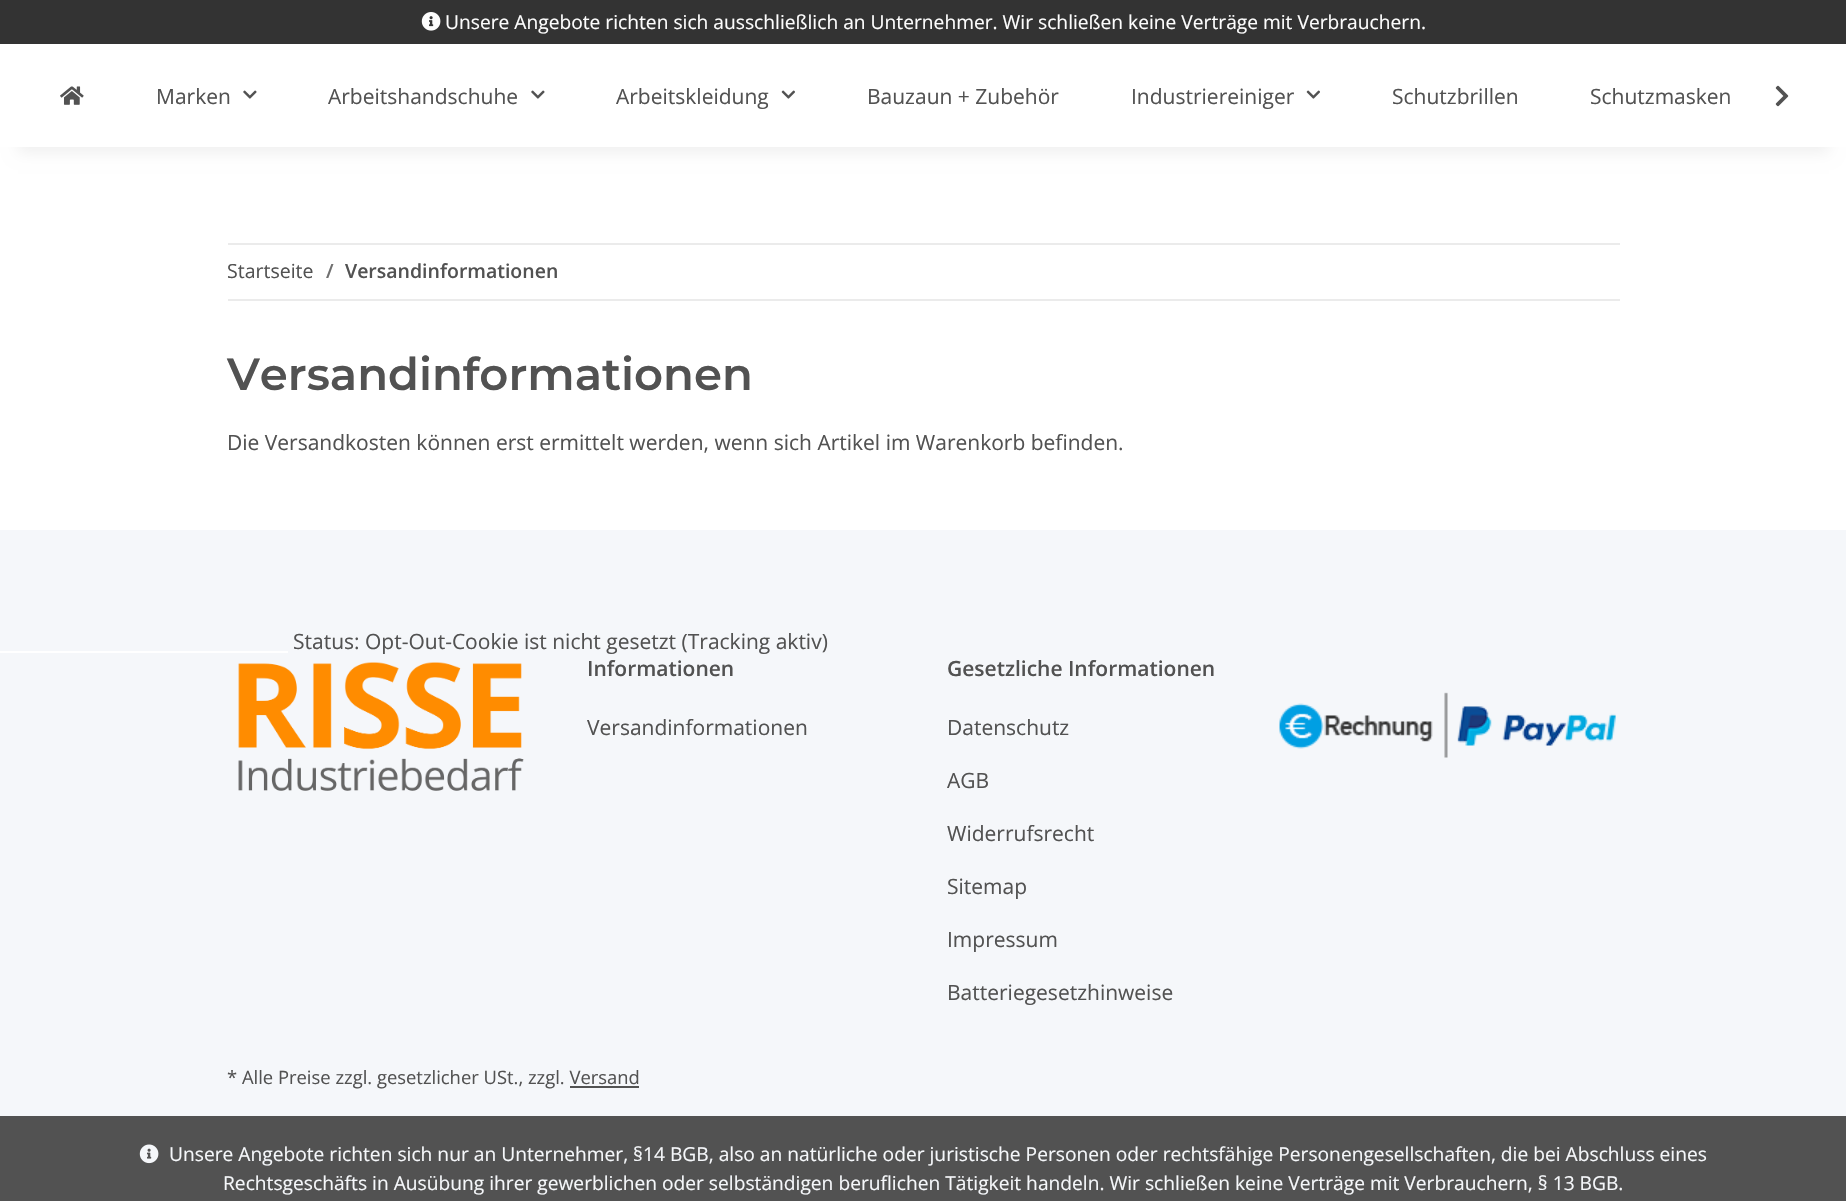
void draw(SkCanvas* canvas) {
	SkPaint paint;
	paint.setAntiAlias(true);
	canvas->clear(0xfff5f7fa);
	paint.setColor(0xff333333);
	canvas->drawRect(SkRect::MakeXYWH(0, 0, 1846, 44), paint);
	canvas->drawImageRect(SkImages::DeferredFromEncodedData(SkData::MakeFromFileName("img1.png")), SkRect::MakeXYWH(421, 12, 20, 19), SkSamplingOptions());
	SkFont f1(fontMgr->matchFamilyStyle("Open Sans", SkFontStyle::Normal()), 19.2);
	f1.setSubpixel(true);
	paint.setColor(0xfffdfdfd);
	canvas->drawString("Unsere Angebote richten sich ausschließlich an Unternehmer. Wir schließen keine Verträge mit Verbrauchern.", 445, 29, f1, paint);
	paint.setColor(0xffffffff);
	canvas->drawRect(SkRect::MakeXYWH(0, 147, 1846, 383), paint);
	paint.setColor(0x0f000000);
	paint.setMaskFilter(SkMaskFilter::MakeBlur(kNormal_SkBlurStyle, 7));
	canvas->drawRect(SkRect::MakeXYWH(18, 86, 1811, 67), paint);
	paint.setMaskFilter(nullptr);
	paint.setColor(0xffffffff);
	canvas->drawRect(SkRect::MakeXYWH(0, 44, 1846, 103), paint);
	canvas->drawImageRect(SkImages::DeferredFromEncodedData(SkData::MakeFromFileName("img2.png")), SkRect::MakeXYWH(60, 86, 24, 19), SkSamplingOptions());
	SkFont f2(fontMgr->matchFamilyStyle("Open Sans", SkFontStyle::Normal()), 21);
	f2.setSubpixel(true);
	paint.setColor(0xff525252);
	canvas->drawString("Marken", 156, 104, f2, paint);
	canvas->drawImageRect(SkImages::DeferredFromEncodedData(SkData::MakeFromFileName("img3.png")), SkRect::MakeXYWH(243, 90, 14, 9), SkSamplingOptions());
	canvas->drawString("Arbeitshandschuhe", 328, 104, f2, paint);
	canvas->drawImageRect(SkImages::DeferredFromEncodedData(SkData::MakeFromFileName("img3.png")), SkRect::MakeXYWH(531, 90, 14, 9), SkSamplingOptions());
	canvas->drawString("Arbeitskleidung", 616, 104, f2, paint);
	canvas->drawImageRect(SkImages::DeferredFromEncodedData(SkData::MakeFromFileName("img4.png")), SkRect::MakeXYWH(781, 90, 14, 9), SkSamplingOptions());
	canvas->drawString("Bauzaun + Zubehör", 867, 104, f2, paint);
	canvas->drawString("Industriereiniger", 1131, 104, f2, paint);
	canvas->drawImageRect(SkImages::DeferredFromEncodedData(SkData::MakeFromFileName("img4.png")), SkRect::MakeXYWH(1306, 90, 14, 9), SkSamplingOptions());
	canvas->drawString("Schutzbrillen", 1392, 104, f2, paint);
	canvas->drawString("Schutzmasken", 1590, 104, f2, paint);
	{
		const SkColor colors[] = {0x03ffffff, 0xffffffff};
		const float stops[] = {0, 0.7};
		const SkPoint ends[] = {{1727, 96}, {1799, 96}};
		paint.setShader(SkGradientShader::MakeLinear(ends, colors, stops, 2, SkTileMode::kClamp));
		paint.setAlpha(255);
	}
	canvas->drawRect(SkRect::MakeXYWH(1728, 93, 2, 11), paint);
	canvas->drawImageRect(SkImages::DeferredFromEncodedData(SkData::MakeFromFileName("img5.png")), SkRect::MakeXYWH(1775, 85, 14, 22), SkSamplingOptions());
	paint.setShader(nullptr);
	paint.setColor(0xffebebeb);
	canvas->drawRect(SkRect::MakeXYWH(228, 243, 1392, 2), paint);
	canvas->drawRect(SkRect::MakeXYWH(228, 299, 1392, 2), paint);
	SkFont f3(fontMgr->matchFamilyStyle("Open Sans", SkFontStyle::Normal()), 19.5);
	f3.setSubpixel(true);
	paint.setColor(0xff525252);
	canvas->drawString("Startseite", 227, 278, f3, paint);
	SkFont f4(fontMgr->matchFamilyStyle("Open Sans", SkFontStyle(600, SkFontStyle::kNormal_Width, SkFontStyle::kUpright_Slant)), 19.5);
	f4.setSubpixel(true);
	paint.setColor(0xff707070);
	canvas->drawString("/", 326, 278, f4, paint);
	paint.setColor(0xff525252);
	canvas->drawString("Versandinformationen", 345, 278, f4, paint);
	SkFont f5(fontMgr->matchFamilyStyle("Montserrat", SkFontStyle(600, SkFontStyle::kNormal_Width, SkFontStyle::kUpright_Slant)), 45);
	f5.setSubpixel(true);
	canvas->drawString("Versandinformationen", 227, 390, f5, paint);
	canvas->drawString("Die Versandkosten können erst ermittelt werden, wenn sich Artikel im Warenkorb befinden.", 227, 450, f2, paint);
	paint.setColor(0xffffffff);
	canvas->drawRect(SkRect::MakeXYWH(0, 651, 288, 2), paint);
	paint.setColor(0xff525252);
	canvas->drawString("Status: Opt-Out-Cookie ist nicht gesetzt (Tracking aktiv)", 293, 649, f2, paint);
	canvas->drawImageRect(SkImages::DeferredFromEncodedData(SkData::MakeFromFileName("img6.png")), SkRect::MakeXYWH(238, 662, 286, 129), SkSamplingOptions());
	SkFont f6(fontMgr->matchFamilyStyle("Open Sans", SkFontStyle(600, SkFontStyle::kNormal_Width, SkFontStyle::kUpright_Slant)), 21);
	f6.setSubpixel(true);
	canvas->drawString("Informationen", 587, 676, f6, paint);
	canvas->drawString("Versandinformationen", 587, 735, f2, paint);
	canvas->drawString("Gesetzliche Informationen", 947, 676, f6, paint);
	canvas->drawString("Datenschutz", 947, 735, f2, paint);
	canvas->drawString("AGB", 947, 788, f2, paint);
	canvas->drawString("Widerrufsrecht", 947, 841, f2, paint);
	canvas->drawString("Sitemap", 947, 894, f2, paint);
	canvas->drawString("Impressum", 947, 947, f2, paint);
	canvas->drawString("Batteriegesetzhinweise", 947, 1000, f2, paint);
	canvas->drawImageRect(SkImages::DeferredFromEncodedData(SkData::MakeFromFileName("img7.png")), SkRect::MakeXYWH(1279, 692, 337, 66), SkSamplingOptions());
	SkFont f7(fontMgr->matchFamilyStyle("Open Sans", SkFontStyle::Normal()), 18.4);
	f7.setSubpixel(true);
	canvas->drawString("* Alle Preise zzgl. gesetzlicher USt., zzgl. Versand", 227, 1084, f7, paint);
	canvas->drawRect(SkRect::MakeXYWH(570, 1086, 69, 2), paint);
	canvas->drawRect(SkRect::MakeXYWH(0, 1116, 1846, 85), paint);
	canvas->drawImageRect(SkImages::DeferredFromEncodedData(SkData::MakeFromFileName("img8.png")), SkRect::MakeXYWH(139, 1144, 20, 20), SkSamplingOptions());
	paint.setColor(0xfff5f7fa);
	canvas->drawString("Unsere Angebote richten sich nur an Unternehmer, §14 BGB, also an natürliche oder juristische Personen oder rechtsfähige Personengesellschaften, die bei Abschluss eines", 169, 1161, f1, paint);
	canvas->drawString("Rechtsgeschäfts in Ausübung ihrer gewerblichen oder selbständigen beruflichen Tätigkeit handeln. Wir schließen keine Verträge mit Verbrauchern, § 13 BGB.", 223, 1190, f1, paint);
}
